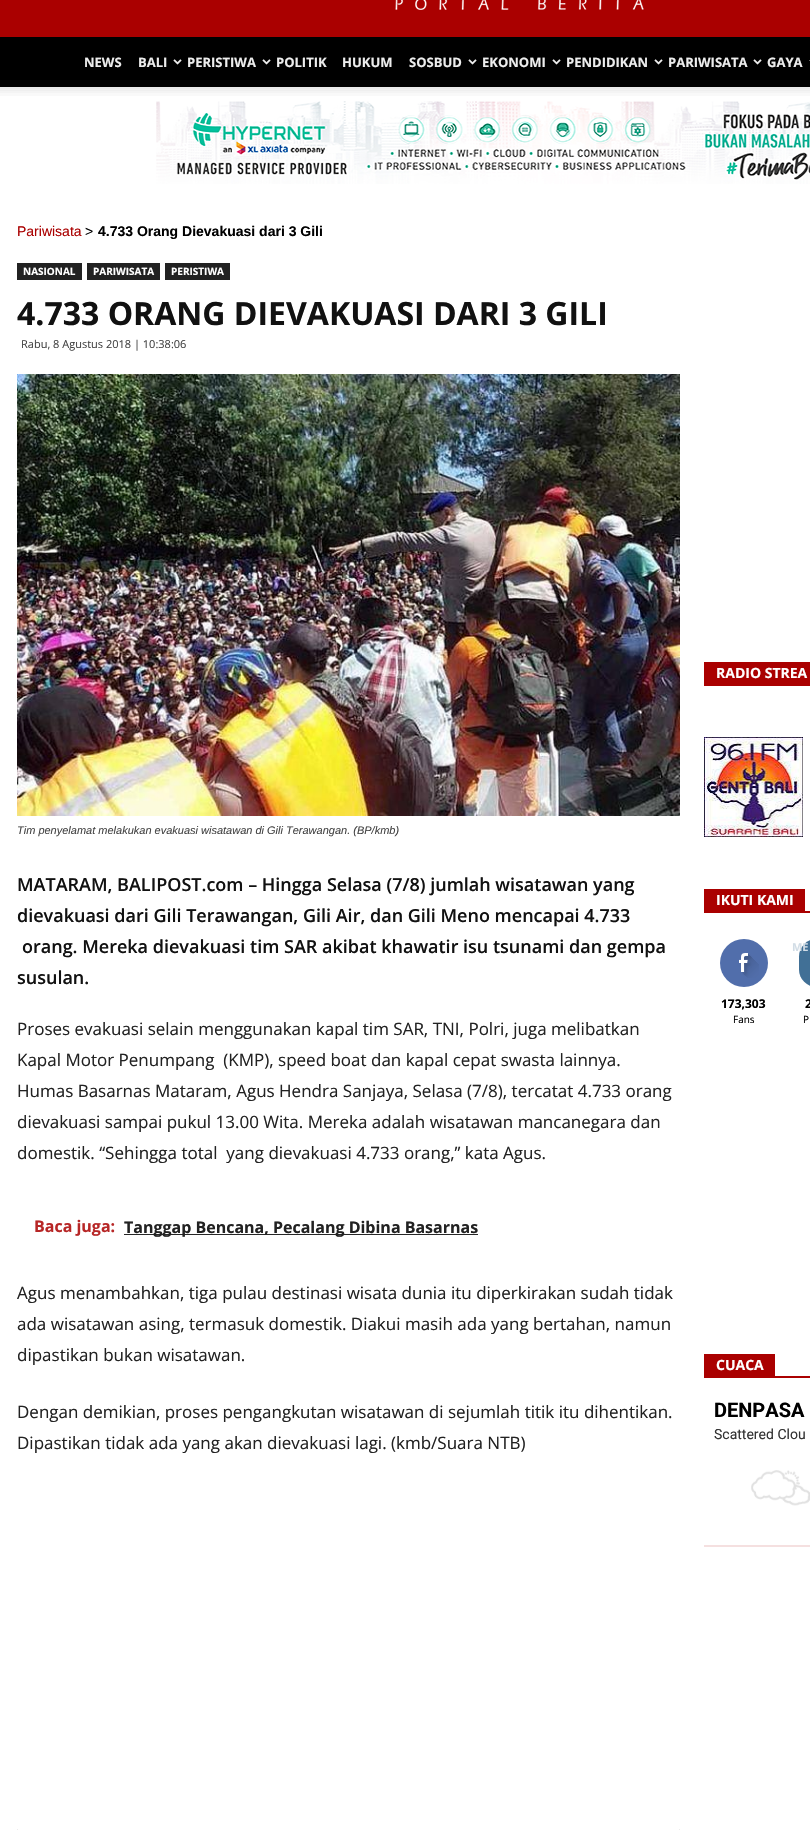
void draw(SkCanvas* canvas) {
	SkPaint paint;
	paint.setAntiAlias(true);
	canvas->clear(0xffffffff);
	paint.setColor(0xffaa0000);
	canvas->drawRect(SkRect::MakeXYWH(0, 0, 810, 37), paint);
	canvas->drawImageRect(SkImages::DeferredFromEncodedData(SkData::MakeFromFileName("img1.png")), SkRect::MakeXYWH(395, 0, 249, 10), SkSamplingOptions());
	paint.setColor(0xff000000);
	canvas->drawRect(SkRect::MakeXYWH(0, 37, 810, 50), paint);
	SkFont f1(fontMgr->matchFamilyStyle("Open Sans", SkFontStyle::Bold()), 13);
	f1.setSubpixel(true);
	paint.setColor(0xffededed);
	canvas->drawString("NEWS", 84, 67, f1, paint);
	canvas->drawString("BALI", 138, 67, f1, paint);
	canvas->drawImageRect(SkImages::DeferredFromEncodedData(SkData::MakeFromFileName("img2.png")), SkRect::MakeXYWH(173, 59, 9, 6), SkSamplingOptions());
	canvas->drawString("PERISTIWA", 187, 67, f1, paint);
	canvas->drawImageRect(SkImages::DeferredFromEncodedData(SkData::MakeFromFileName("img2.png")), SkRect::MakeXYWH(262, 59, 9, 6), SkSamplingOptions());
	canvas->drawString("POLITIK", 276, 67, f1, paint);
	canvas->drawString("HUKUM", 342, 67, f1, paint);
	canvas->drawString("SOSBUD", 409, 67, f1, paint);
	canvas->drawImageRect(SkImages::DeferredFromEncodedData(SkData::MakeFromFileName("img2.png")), SkRect::MakeXYWH(468, 59, 9, 6), SkSamplingOptions());
	canvas->drawString("EKONOMI", 482, 67, f1, paint);
	canvas->drawImageRect(SkImages::DeferredFromEncodedData(SkData::MakeFromFileName("img2.png")), SkRect::MakeXYWH(552, 59, 9, 6), SkSamplingOptions());
	canvas->drawString("PENDIDIKAN", 566, 67, f1, paint);
	canvas->drawImageRect(SkImages::DeferredFromEncodedData(SkData::MakeFromFileName("img2.png")), SkRect::MakeXYWH(654, 59, 9, 6), SkSamplingOptions());
	canvas->drawString("PARIWISATA", 668, 67, f1, paint);
	canvas->drawImageRect(SkImages::DeferredFromEncodedData(SkData::MakeFromFileName("img2.png")), SkRect::MakeXYWH(753, 59, 9, 6), SkSamplingOptions());
	canvas->drawString("GAYA", 767, 67, f1, paint);
	canvas->drawImageRect(SkImages::DeferredFromEncodedData(SkData::MakeFromFileName("img3.png")), SkRect::MakeXYWH(809, 60, 1, 1), SkSamplingOptions());
	canvas->drawImageRect(SkImages::DeferredFromEncodedData(SkData::MakeFromFileName("img4.png")), SkRect::MakeXYWH(0, 87, 810, 9), SkSamplingOptions());
	canvas->drawImageRect(SkImages::DeferredFromEncodedData(SkData::MakeFromFileName("img5.png")), SkRect::MakeXYWH(156, 101, 654, 83), SkSamplingOptions());
	SkFont f2(fontMgr->matchFamilyStyle("Liberation Sans", SkFontStyle::Normal()), 14);
	f2.setSubpixel(true);
	paint.setColor(0xffaa0000);
	canvas->drawString("Pariwisata", 17, 236, f2, paint);
	paint.setColor(0xff000000);
	canvas->drawString(">", 85, 236, f2, paint);
	SkFont f3(fontMgr->matchFamilyStyle("Liberation Sans", SkFontStyle::Bold()), 14);
	f3.setSubpixel(true);
	canvas->drawString("4.733 Orang Dievakuasi dari 3 Gili", 98, 236, f3, paint);
	paint.setColor(0xff222222);
	canvas->drawRect(SkRect::MakeXYWH(17, 263, 65, 17), paint);
	SkFont f4(fontMgr->matchFamilyStyle("Open Sans", SkFontStyle::Bold()), 10);
	f4.setSubpixel(true);
	paint.setColor(0xffffffff);
	canvas->drawString("NASIONAL", 23, 275, f4, paint);
	paint.setColor(0xff222222);
	canvas->drawRect(SkRect::MakeXYWH(87, 263, 73, 17), paint);
	paint.setColor(0xffffffff);
	canvas->drawString("PARIWISATA", 93, 275, f4, paint);
	paint.setColor(0xff222222);
	canvas->drawRect(SkRect::MakeXYWH(165, 263, 65, 17), paint);
	paint.setColor(0xffffffff);
	canvas->drawString("PERISTIWA", 171, 275, f4, paint);
	SkFont f5(fontMgr->matchFamilyStyle("Open Sans", SkFontStyle::Bold()), 32);
	f5.setSubpixel(true);
	paint.setColor(0xff111111);
	canvas->drawString("4.733 ORANG DIEVAKUASI DARI 3 GILI", 17, 325, f5, paint);
	SkFont f6(fontMgr->matchFamilyStyle("Open Sans", SkFontStyle::Normal()), 11);
	f6.setSubpixel(true);
	paint.setColor(0xff444444);
	canvas->drawString("Rabu, 8 Agustus 2018 | 10:38:06", 21, 348, f6, paint);
	canvas->drawImageRect(SkImages::DeferredFromEncodedData(SkData::MakeFromFileName("img6.png")), SkRect::MakeXYWH(17, 374, 663, 442), SkSamplingOptions());
	SkFont f7(fontMgr->matchFamilyStyle("Liberation Sans", SkFontStyle::Italic()), 11);
	f7.setSubpixel(true);
	canvas->drawString("Tim penyelamat melakukan evakuasi wisatawan di Gili Terawangan. (BP/kmb)", 17, 834, f7, paint);
	SkFont f8(fontMgr->matchFamilyStyle("Open Sans", SkFontStyle(600, SkFontStyle::kNormal_Width, SkFontStyle::kUpright_Slant)), 18);
	f8.setSubpixel(true);
	paint.setColor(0xff111111);
	canvas->drawString("MATARAM, BALIPOST.com – Hingga Selasa (7/8) jumlah wisatawan yang", 17, 891, f8, paint);
	canvas->drawString("dievakuasi dari Gili Terawangan, Gili Air, dan Gili Meno mencapai 4.733", 17, 922, f8, paint);
	canvas->drawString("orang. Mereka dievakuasi tim SAR akibat khawatir isu tsunami dan gempa", 22, 953, f8, paint);
	canvas->drawString("susulan.", 17, 984, f8, paint);
	SkFont f9(fontMgr->matchFamilyStyle("Open Sans", SkFontStyle::Normal()), 17);
	f9.setSubpixel(true);
	paint.setColor(0xff222222);
	canvas->drawString("Proses evakuasi selain menggunakan kapal tim SAR, TNI, Polri, juga melibatkan", 17, 1035, f9, paint);
	canvas->drawString("Kapal Motor Penumpang  (KMP), speed boat dan kapal cepat swasta lainnya.", 17, 1066, f9, paint);
	canvas->drawString("Humas Basarnas Mataram, Agus Hendra Sanjaya, Selasa (7/8), tercatat 4.733 orang", 17, 1097, f9, paint);
	canvas->drawString("dievakuasi sampai pukul 13.00 Wita. Mereka adalah wisatawan mancanegara dan", 17, 1128, f9, paint);
	canvas->drawString("domestik. “Sehingga total  yang dievakuasi 4.733 orang,’’ kata Agus.", 17, 1159, f9, paint);
	SkFont f10(fontMgr->matchFamilyStyle("Open Sans", SkFontStyle::Bold()), 16);
	f10.setSubpixel(true);
	paint.setColor(0xffb72626);
	canvas->drawString("Baca juga:", 34, 1232, f10, paint);
	paint.setColor(0xff262626);
	canvas->drawRect(SkRect::MakeXYWH(124, 1234, 354, 1), paint);
	paint.setColor(0xff222222);
	canvas->drawString("Tanggap Bencana, Pecalang Dibina Basarnas", 124, 1233, f10, paint);
	canvas->drawString("Agus menambahkan, tiga pulau destinasi wisata dunia itu diperkirakan sudah tidak", 17, 1299, f9, paint);
	canvas->drawString("ada wisatawan asing, termasuk domestik. Diakui masih ada yang bertahan, namun", 17, 1330, f9, paint);
	canvas->drawString("dipastikan bukan wisatawan.", 17, 1361, f9, paint);
	canvas->drawString("Dengan demikian, proses pengangkutan wisatawan di sejumlah titik itu dihentikan.", 17, 1418, f9, paint);
	canvas->drawString("Dipastikan tidak ada yang akan dievakuasi lagi. (kmb/Suara NTB)", 17, 1449, f9, paint);
	paint.setStroke(true);
	paint.setStrokeWidth(1);
	paint.setColor(0xffededed);
	canvas->drawRect(SkRect::MakeXYWH(17.5, 1815.5, 662, 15), paint);
	paint.setStroke(false);
	paint.setColor(0xffaa0000);
	canvas->drawRect(SkRect::MakeXYWH(704, 662, 106, 24), paint);
	SkFont f11(fontMgr->matchFamilyStyle("Open Sans", SkFontStyle::Bold()), 14);
	f11.setSubpixel(true);
	paint.setColor(0xffffffff);
	canvas->drawString("RADIO STREA", 716, 678, f11, paint);
	canvas->drawImageRect(SkImages::DeferredFromEncodedData(SkData::MakeFromFileName("img7.png")), SkRect::MakeXYWH(704, 737, 99, 100), SkSamplingOptions());
	paint.setColor(0xffaa0000);
	canvas->drawRect(SkRect::MakeXYWH(704, 911, 106, 2), paint);
	canvas->drawRect(SkRect::MakeXYWH(704, 889, 101, 22), paint);
	paint.setColor(0xffffffff);
	canvas->drawString("IKUTI KAMI", 716, 905, f11, paint);
	paint.setColor(0xff516eab);
	canvas->drawCircle(744, 963, 24, paint);
	canvas->drawImageRect(SkImages::DeferredFromEncodedData(SkData::MakeFromFileName("img8.png")), SkRect::MakeXYWH(739, 953, 20, 25), SkSamplingOptions());
	SkFont f12(fontMgr->matchFamilyStyle("Open Sans", SkFontStyle::Bold()), 12);
	f12.setSubpixel(true);
	paint.setColor(0xff000000);
	canvas->drawString("173,303", 721, 1008, f12, paint);
	SkFont f13(fontMgr->matchFamilyStyle("Open Sans", SkFontStyle::Normal()), 10);
	f13.setSubpixel(true);
	canvas->drawString("Fans", 733, 1023, f13, paint);
	paint.setColor(0xff417096);
	canvas->drawRoundRect(SkRect::MakeXYWH(799, 939, 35, 48), 24, 24, paint);
	SkFont f14(fontMgr->matchFamilyStyle("Open Sans", SkFontStyle::Bold()), 11);
	f14.setSubpixel(true);
	paint.setColor(0xffd2dde6);
	canvas->drawString("ME", 792, 951, f14, paint);
	paint.setColor(0xff000000);
	canvas->drawString("2", 805, 1008, f12, paint);
	canvas->drawString("P", 803, 1023, f13, paint);
	paint.setColor(0xffaa0000);
	canvas->drawRect(SkRect::MakeXYWH(704, 1376, 106, 2), paint);
	canvas->drawRect(SkRect::MakeXYWH(704, 1354, 71, 22), paint);
	paint.setColor(0xffffffff);
	canvas->drawString("CUACA", 716, 1370, f11, paint);
	SkFont f15(fontMgr->matchFamilyStyle("Roboto", SkFontStyle::Bold()), 20);
	f15.setSubpixel(true);
	paint.setColor(0xff000000);
	canvas->drawString("DENPASA", 714, 1417, f15, paint);
	SkFont f16(fontMgr->matchFamilyStyle("Roboto", SkFontStyle::Normal()), 14);
	f16.setSubpixel(true);
	paint.setColor(0xff333333);
	canvas->drawString("Scattered Clou", 714, 1439, f16, paint);
	canvas->drawImageRect(SkImages::DeferredFromEncodedData(SkData::MakeFromFileName("img9.png")), SkRect::MakeXYWH(751, 1470, 59, 36), SkSamplingOptions());
	paint.setColor(0xfff5e0e0);
	canvas->drawRect(SkRect::MakeXYWH(704, 1545, 106, 2), paint);
	paint.setColor(0xffffffff);
	canvas->drawRect(SkRect::MakeXYWH(17, 1815, 663, 14), paint);
}
